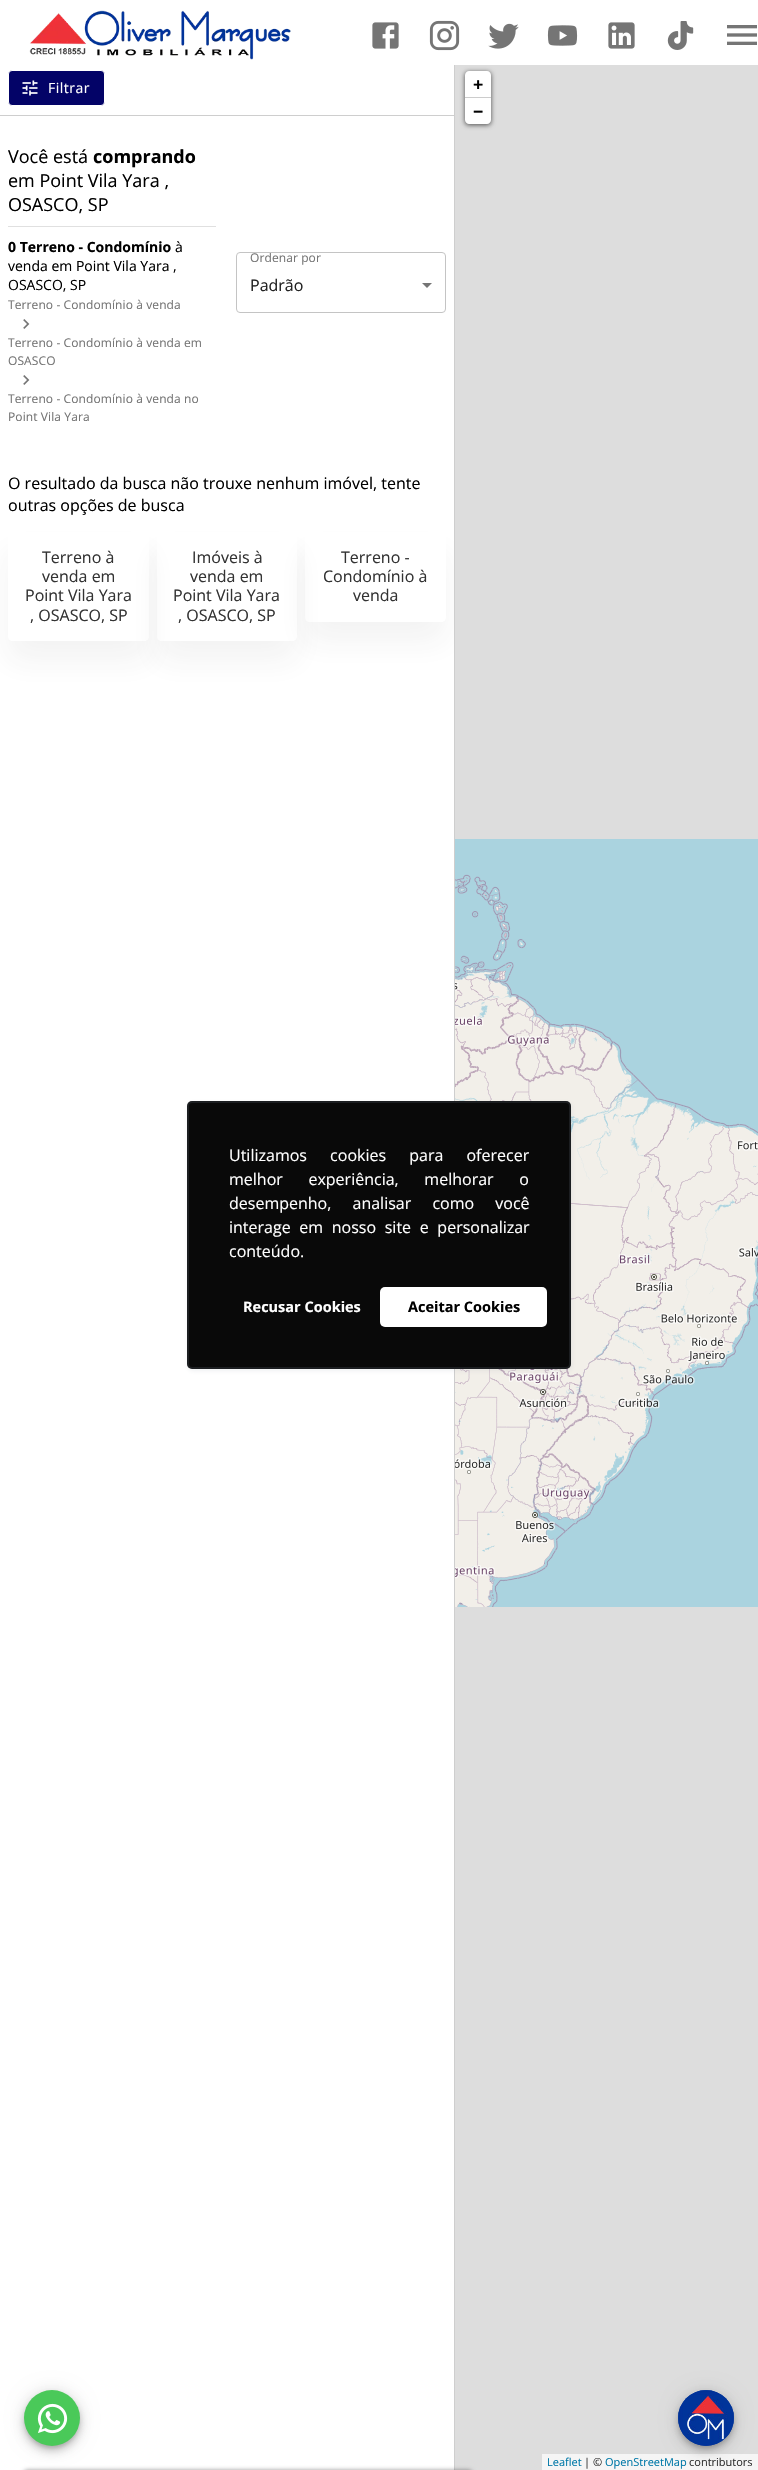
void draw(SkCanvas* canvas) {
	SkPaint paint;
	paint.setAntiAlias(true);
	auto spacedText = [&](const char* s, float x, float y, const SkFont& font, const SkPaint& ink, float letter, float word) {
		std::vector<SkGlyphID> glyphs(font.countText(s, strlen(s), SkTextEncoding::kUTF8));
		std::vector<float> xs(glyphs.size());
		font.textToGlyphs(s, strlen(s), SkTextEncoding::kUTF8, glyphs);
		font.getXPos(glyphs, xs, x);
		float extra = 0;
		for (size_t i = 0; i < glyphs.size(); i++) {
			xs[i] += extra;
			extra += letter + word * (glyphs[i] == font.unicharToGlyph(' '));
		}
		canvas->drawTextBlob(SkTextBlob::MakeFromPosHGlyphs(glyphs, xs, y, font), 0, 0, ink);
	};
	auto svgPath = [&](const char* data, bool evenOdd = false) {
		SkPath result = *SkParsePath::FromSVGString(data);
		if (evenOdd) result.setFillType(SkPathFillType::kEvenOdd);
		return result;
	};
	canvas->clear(0xffffffff);
	paint.setColor(0xffcecece);
	canvas->drawRect(SkRect::MakeXYWH(454, 61, 1, 2409), paint);
	paint.setColor(0xffffffff);
	canvas->drawRect(SkRect::MakeXYWH(454, 61, 1, 4), paint);
	canvas->drawImageRect(SkImages::DeferredFromEncodedData(SkData::MakeFromFileName("img1.png")), SkRect::MakeXYWH(29, 10, 262, 50), SkSamplingOptions());
	canvas->drawImageRect(SkImages::DeferredFromEncodedData(SkData::MakeFromFileName("img2.png")), SkRect::MakeXYWH(372, 22, 27, 27), SkSamplingOptions());
	canvas->drawImageRect(SkImages::DeferredFromEncodedData(SkData::MakeFromFileName("img3.png")), SkRect::MakeXYWH(429, 20, 31, 31), SkSamplingOptions());
	canvas->drawImageRect(SkImages::DeferredFromEncodedData(SkData::MakeFromFileName("img4.png")), SkRect::MakeXYWH(488, 23, 31, 26), SkSamplingOptions());
	canvas->drawImageRect(SkImages::DeferredFromEncodedData(SkData::MakeFromFileName("img5.png")), SkRect::MakeXYWH(547, 25, 31, 21), SkSamplingOptions());
	canvas->drawImageRect(SkImages::DeferredFromEncodedData(SkData::MakeFromFileName("img6.png")), SkRect::MakeXYWH(608, 22, 27, 27), SkSamplingOptions());
	canvas->drawImageRect(SkImages::DeferredFromEncodedData(SkData::MakeFromFileName("img7.png")), SkRect::MakeXYWH(667, 21, 27, 29), SkSamplingOptions());
	canvas->drawImageRect(SkImages::DeferredFromEncodedData(SkData::MakeFromFileName("img8.png")), SkRect::MakeXYWH(727, 25, 30, 20), SkSamplingOptions());
	paint.setColor(0xffcecece);
	canvas->drawRect(SkRect::MakeXYWH(0, 115, 454, 1), paint);
	paint.setColor(0xff030367);
	canvas->drawRoundRect(SkRect::MakeXYWH(8.5, 70.5, 96, 35), 3.5, 3.5, paint);
	paint.setStroke(true);
	paint.setStrokeWidth(1);
	paint.setColor(0xffffffff);
	canvas->drawRoundRect(SkRect::MakeXYWH(8.5, 70.5, 96, 35), 3.5, 3.5, paint);
	canvas->drawImageRect(SkImages::DeferredFromEncodedData(SkData::MakeFromFileName("img9.png")), SkRect::MakeXYWH(22, 80, 16, 16), SkSamplingOptions());
	SkFont f1(fontMgr->matchFamilyStyle("Open Sans", SkFontStyle::Normal()), 14);
	f1.setSubpixel(true);
	paint.setStroke(false);
	spacedText("Filtrar", 48, 93, f1, paint, 0.5, 0);
	SkFont f2(fontMgr->matchFamilyStyle("Open Sans", SkFontStyle::Normal()), 18);
	f2.setSubpixel(true);
	paint.setColor(0xff000000);
	canvas->drawString("Você está", 8, 163, f2, paint);
	SkFont f3(fontMgr->matchFamilyStyle("Open Sans", SkFontStyle::Bold()), 18);
	f3.setSubpixel(true);
	canvas->drawString("comprando", 93, 163, f3, paint);
	canvas->drawString("em Point Vila Yara ,", 8, 187, f2, paint);
	canvas->drawString("OSASCO, SP", 8, 211, f2, paint);
	paint.setColor(0xffe0e0e0);
	canvas->drawRect(SkRect::MakeXYWH(8, 226, 208, 1), paint);
	SkFont f4(fontMgr->matchFamilyStyle("Open Sans", SkFontStyle::Bold()), 14);
	f4.setSubpixel(true);
	paint.setColor(0xff000000);
	canvas->drawString("0 Terreno - Condomínio", 8, 252, f4, paint);
	canvas->drawString("à", 175, 252, f1, paint);
	canvas->drawString("venda em Point Vila Yara ,", 8, 271, f1, paint);
	canvas->drawString("OSASCO, SP", 8, 290, f1, paint);
	SkFont f5(fontMgr->matchFamilyStyle("Open Sans", SkFontStyle::Normal()), 12);
	f5.setSubpixel(true);
	paint.setColor(0xff757575);
	spacedText("Terreno - Condomínio à venda", 8, 309, f5, paint, 0.1, 0);
	canvas->drawImageRect(SkImages::DeferredFromEncodedData(SkData::MakeFromFileName("img10.png")), SkRect::MakeXYWH(23, 319, 7, 10), SkSamplingOptions());
	spacedText("Terreno - Condomínio à venda em", 8, 347, f5, paint, 0.1, 0);
	spacedText("OSASCO", 8, 365, f5, paint, 0.1, 0);
	canvas->drawImageRect(SkImages::DeferredFromEncodedData(SkData::MakeFromFileName("img10.png")), SkRect::MakeXYWH(23, 375, 7, 10), SkSamplingOptions());
	spacedText("Terreno - Condomínio à venda no", 8, 403, f5, paint, 0.1, 0);
	spacedText("Point Vila Yara", 8, 421, f5, paint, 0.1, 0);
	canvas->drawPath(svgPath("M422 283L427 288L432 283Z"), paint);
	paint.setStroke(true);
	paint.setColor(0xffc4c4c4);
	canvas->drawRoundRect(SkRect::MakeXYWH(236.5, 252.5, 209, 60), 3.5, 3.5, paint);
	paint.setStroke(false);
	paint.setColor(0xff757575);
	spacedText("Ordenar por", 250, 262, f5, paint, 0.1, 0);
	SkFont f6(fontMgr->matchFamilyStyle("Open Sans", SkFontStyle::Normal()), 16);
	f6.setSubpixel(true);
	paint.setColor(0xff212121);
	canvas->drawString("Padrão", 250, 291, f6, paint);
	paint.setColor(0xff000000);
	canvas->drawString("O resultado da busca não trouxe nenhum imóvel, tente", 8, 489, f6, paint);
	canvas->drawString("outras opções de busca", 8, 511, f6, paint);
	canvas->save();
	canvas->clipPath(svgPath("M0 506H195V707H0ZM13 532H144C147 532 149 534 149 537V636C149 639 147 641 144 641H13C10 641 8 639 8 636V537C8 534 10 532 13 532Z", true), true);
	paint.setColor(0x0f333333);
	paint.setMaskFilter(SkMaskFilter::MakeBlur(kNormal_SkBlurStyle, 15));
	canvas->drawRoundRect(SkRect::MakeXYWH(8, 552, 141, 109), 5, 5, paint);
	paint.setMaskFilter(nullptr);
	canvas->restore();
	paint.setColor(0xff333333);
	canvas->drawString("Terreno à", 42, 563, f6, paint);
	canvas->drawString("venda em", 42, 582, f6, paint);
	canvas->drawString("Point Vila Yara", 25, 601, f6, paint);
	canvas->drawString(", OSASCO, SP", 30, 621, f6, paint);
	canvas->save();
	canvas->clipPath(svgPath("M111 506H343V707H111ZM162 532H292C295 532 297 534 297 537V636C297 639 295 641 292 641H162C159 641 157 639 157 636V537C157 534 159 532 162 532Z", true), true);
	paint.setColor(0x0f333333);
	paint.setMaskFilter(SkMaskFilter::MakeBlur(kNormal_SkBlurStyle, 15));
	canvas->drawRoundRect(SkRect::MakeXYWH(157, 552, 140, 109), 5, 5, paint);
	paint.setMaskFilter(nullptr);
	canvas->restore();
	paint.setColor(0xff333333);
	canvas->drawString("Imóveis à", 192, 563, f6, paint);
	canvas->drawString("venda em", 190, 582, f6, paint);
	canvas->drawString("Point Vila Yara", 173, 601, f6, paint);
	canvas->drawString(", OSASCO, SP", 178, 621, f6, paint);
	paint.setColor(0xffdddddd);
	canvas->drawRect(SkRect::MakeXYWH(455, 65, 303, 2405), paint);
	canvas->save();
	canvas->clipRect(SkRect::MakeXYWH(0, 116, 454, 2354));
	canvas->clipPath(svgPath("M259 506H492V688H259ZM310 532H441C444 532 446 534 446 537V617C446 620 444 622 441 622H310C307 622 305 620 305 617V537C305 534 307 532 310 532Z", true), true);
	paint.setColor(0x0f333333);
	paint.setMaskFilter(SkMaskFilter::MakeBlur(kNormal_SkBlurStyle, 15));
	canvas->drawRoundRect(SkRect::MakeXYWH(305, 552, 141, 90), 5, 5, paint);
	paint.setMaskFilter(nullptr);
	canvas->restore();
	paint.setColor(0xff333333);
	canvas->drawString("Terreno -", 341, 563, f6, paint);
	canvas->drawString("Condomínio à", 323, 582, f6, paint);
	canvas->drawString("venda", 353, 601, f6, paint);
	paint.setColor(0xa6000000);
	paint.setMaskFilter(SkMaskFilter::MakeBlur(kNormal_SkBlurStyle, 2.5));
	canvas->drawRoundRect(SkRect::MakeXYWH(465, 72, 26, 53), 4, 4, paint);
	paint.setMaskFilter(nullptr);
	paint.setColor(0xffffffff);
	canvas->drawPath(svgPath("M469 71H487C489 71 491 73 491 75V98H465V75C465 73 467 71 469 71Z"), paint);
	paint.setColor(0xffcccccc);
	canvas->drawRect(SkRect::MakeXYWH(465, 97, 26, 1), paint);
	paint.setColor(0xff000000);
	canvas->drawString("+", 473, 91, f3, paint);
	paint.setColor(0xffffffff);
	canvas->drawPath(svgPath("M465 98H491V120C491 122 489 124 487 124H469C467 124 465 122 465 120Z"), paint);
	paint.setColor(0xff000000);
	canvas->drawString("−", 473, 118, f3, paint);
	paint.setColor(0xfff5f5f5);
	canvas->drawRect(SkRect::MakeXYWH(542, 2454, 216, 16), paint);
	SkFont f7(fontMgr->matchFamilyStyle("Open Sans", SkFontStyle::Normal()), 11);
	f7.setSubpixel(true);
	paint.setColor(0xff0078a8);
	canvas->drawString("Leaflet", 547, 2466, f7, paint);
	paint.setColor(0xff333333);
	canvas->drawString("| ©", 584, 2466, f7, paint);
	paint.setColor(0xff0078a8);
	canvas->drawString("OpenStreetMap", 605, 2466, f7, paint);
	paint.setColor(0xff333333);
	canvas->drawString("contributors", 689, 2466, f7, paint);
	canvas->drawImageRect(SkImages::DeferredFromEncodedData(SkData::MakeFromFileName("img11.png")), SkRect::MakeXYWH(455, 839, 232, 256), SkSamplingOptions());
	paint.setColor(0xffaad3df);
	canvas->drawRect(SkRect::MakeXYWH(687, 839, 71, 256), paint);
	canvas->drawImageRect(SkImages::DeferredFromEncodedData(SkData::MakeFromFileName("img12.png")), SkRect::MakeXYWH(455, 1095, 232, 256), SkSamplingOptions());
	canvas->drawImageRect(SkImages::DeferredFromEncodedData(SkData::MakeFromFileName("img13.png")), SkRect::MakeXYWH(687, 1095, 71, 256), SkSamplingOptions());
	canvas->drawImageRect(SkImages::DeferredFromEncodedData(SkData::MakeFromFileName("img14.png")), SkRect::MakeXYWH(455, 1351, 232, 256), SkSamplingOptions());
	canvas->drawImageRect(SkImages::DeferredFromEncodedData(SkData::MakeFromFileName("img15.png")), SkRect::MakeXYWH(687, 1351, 71, 256), SkSamplingOptions());
	paint.setColor(0x1f000000);
	paint.setMaskFilter(SkMaskFilter::MakeBlur(kNormal_SkBlurStyle, 9));
	canvas->drawRoundRect(SkRect::MakeXYWH(24, 2391, 56, 56), 28, 28, paint);
	paint.setMaskFilter(nullptr);
	paint.setColor(0x24000000);
	paint.setMaskFilter(SkMaskFilter::MakeBlur(kNormal_SkBlurStyle, 5));
	canvas->drawRoundRect(SkRect::MakeXYWH(24, 2396, 56, 56), 28, 28, paint);
	paint.setMaskFilter(nullptr);
	paint.setColor(0x33000000);
	paint.setMaskFilter(SkMaskFilter::MakeBlur(kNormal_SkBlurStyle, 2.5));
	canvas->drawRoundRect(SkRect::MakeXYWH(25, 2394, 54, 54), 27, 27, paint);
	paint.setMaskFilter(nullptr);
	paint.setColor(0xff4ac959);
	canvas->drawCircle(52, 2418, 28, paint);
	canvas->drawImageRect(SkImages::DeferredFromEncodedData(SkData::MakeFromFileName("img16.png")), SkRect::MakeXYWH(37, 2403, 31, 31), SkSamplingOptions());
	paint.setColor(0x66000000);
	paint.setMaskFilter(SkMaskFilter::MakeBlur(kNormal_SkBlurStyle, 2));
	canvas->drawRoundRect(SkRect::MakeXYWH(23, 2470, 450, 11), 5, 5, paint);
	paint.setMaskFilter(nullptr);
	paint.setColor(0x1a636e7c);
	paint.setMaskFilter(SkMaskFilter::MakeBlur(kNormal_SkBlurStyle, 2));
	canvas->drawRoundRect(SkRect::MakeXYWH(188, 1103, 384, 268), 5, 5, paint);
	paint.setMaskFilter(nullptr);
	paint.setColor(0xff090909);
	canvas->drawRoundRect(SkRect::MakeXYWH(187, 1101, 384, 268), 5, 5, paint);
	paint.setStroke(true);
	paint.setStrokeWidth(2);
	paint.setColor(0x33636e7c);
	canvas->drawRoundRect(SkRect::MakeXYWH(188, 1102, 382, 266), 4, 4, paint);
	paint.setStroke(false);
	paint.setColor(0xffffffff);
	spacedText("Utilizamos cookies para oferecer", 229, 1161, f6, paint, 0, 19);
	spacedText("melhor experiência, melhorar o", 229, 1185, f6, paint, 0, 21.5);
	spacedText("desempenho, analisar como você", 229, 1209, f6, paint, 0, 17);
	spacedText("interage em nosso site e personalizar", 229, 1233, f6, paint, 0, 4.5);
	canvas->drawString("conteúdo.", 229, 1257, f6, paint);
	SkFont f8(fontMgr->matchFamilyStyle("Open Sans", SkFontStyle::Bold()), 14.5);
	f8.setSubpixel(true);
	canvas->drawString("Recusar Cookies", 243, 1312, f8, paint);
	canvas->drawRoundRect(SkRect::MakeXYWH(380, 1287, 167, 40), 5, 5, paint);
	paint.setColor(0xff000000);
	canvas->drawString("Aceitar Cookies", 408, 1312, f8, paint);
	paint.setColor(0x1f000000);
	paint.setMaskFilter(SkMaskFilter::MakeBlur(kNormal_SkBlurStyle, 9));
	canvas->drawRoundRect(SkRect::MakeXYWH(678, 2391, 56, 56), 28, 28, paint);
	paint.setMaskFilter(nullptr);
	paint.setColor(0x24000000);
	paint.setMaskFilter(SkMaskFilter::MakeBlur(kNormal_SkBlurStyle, 5));
	canvas->drawRoundRect(SkRect::MakeXYWH(678, 2396, 56, 56), 28, 28, paint);
	paint.setMaskFilter(nullptr);
	paint.setColor(0x33000000);
	paint.setMaskFilter(SkMaskFilter::MakeBlur(kNormal_SkBlurStyle, 2.5));
	canvas->drawRoundRect(SkRect::MakeXYWH(679, 2394, 54, 54), 27, 27, paint);
	paint.setMaskFilter(nullptr);
	paint.setColor(0xff003399);
	canvas->drawCircle(706, 2418, 28, paint);
	canvas->drawImageRect(SkImages::DeferredFromEncodedData(SkData::MakeFromFileName("img17.png")), SkRect::MakeXYWH(678, 2390, 56, 56), SkSamplingOptions());
}
